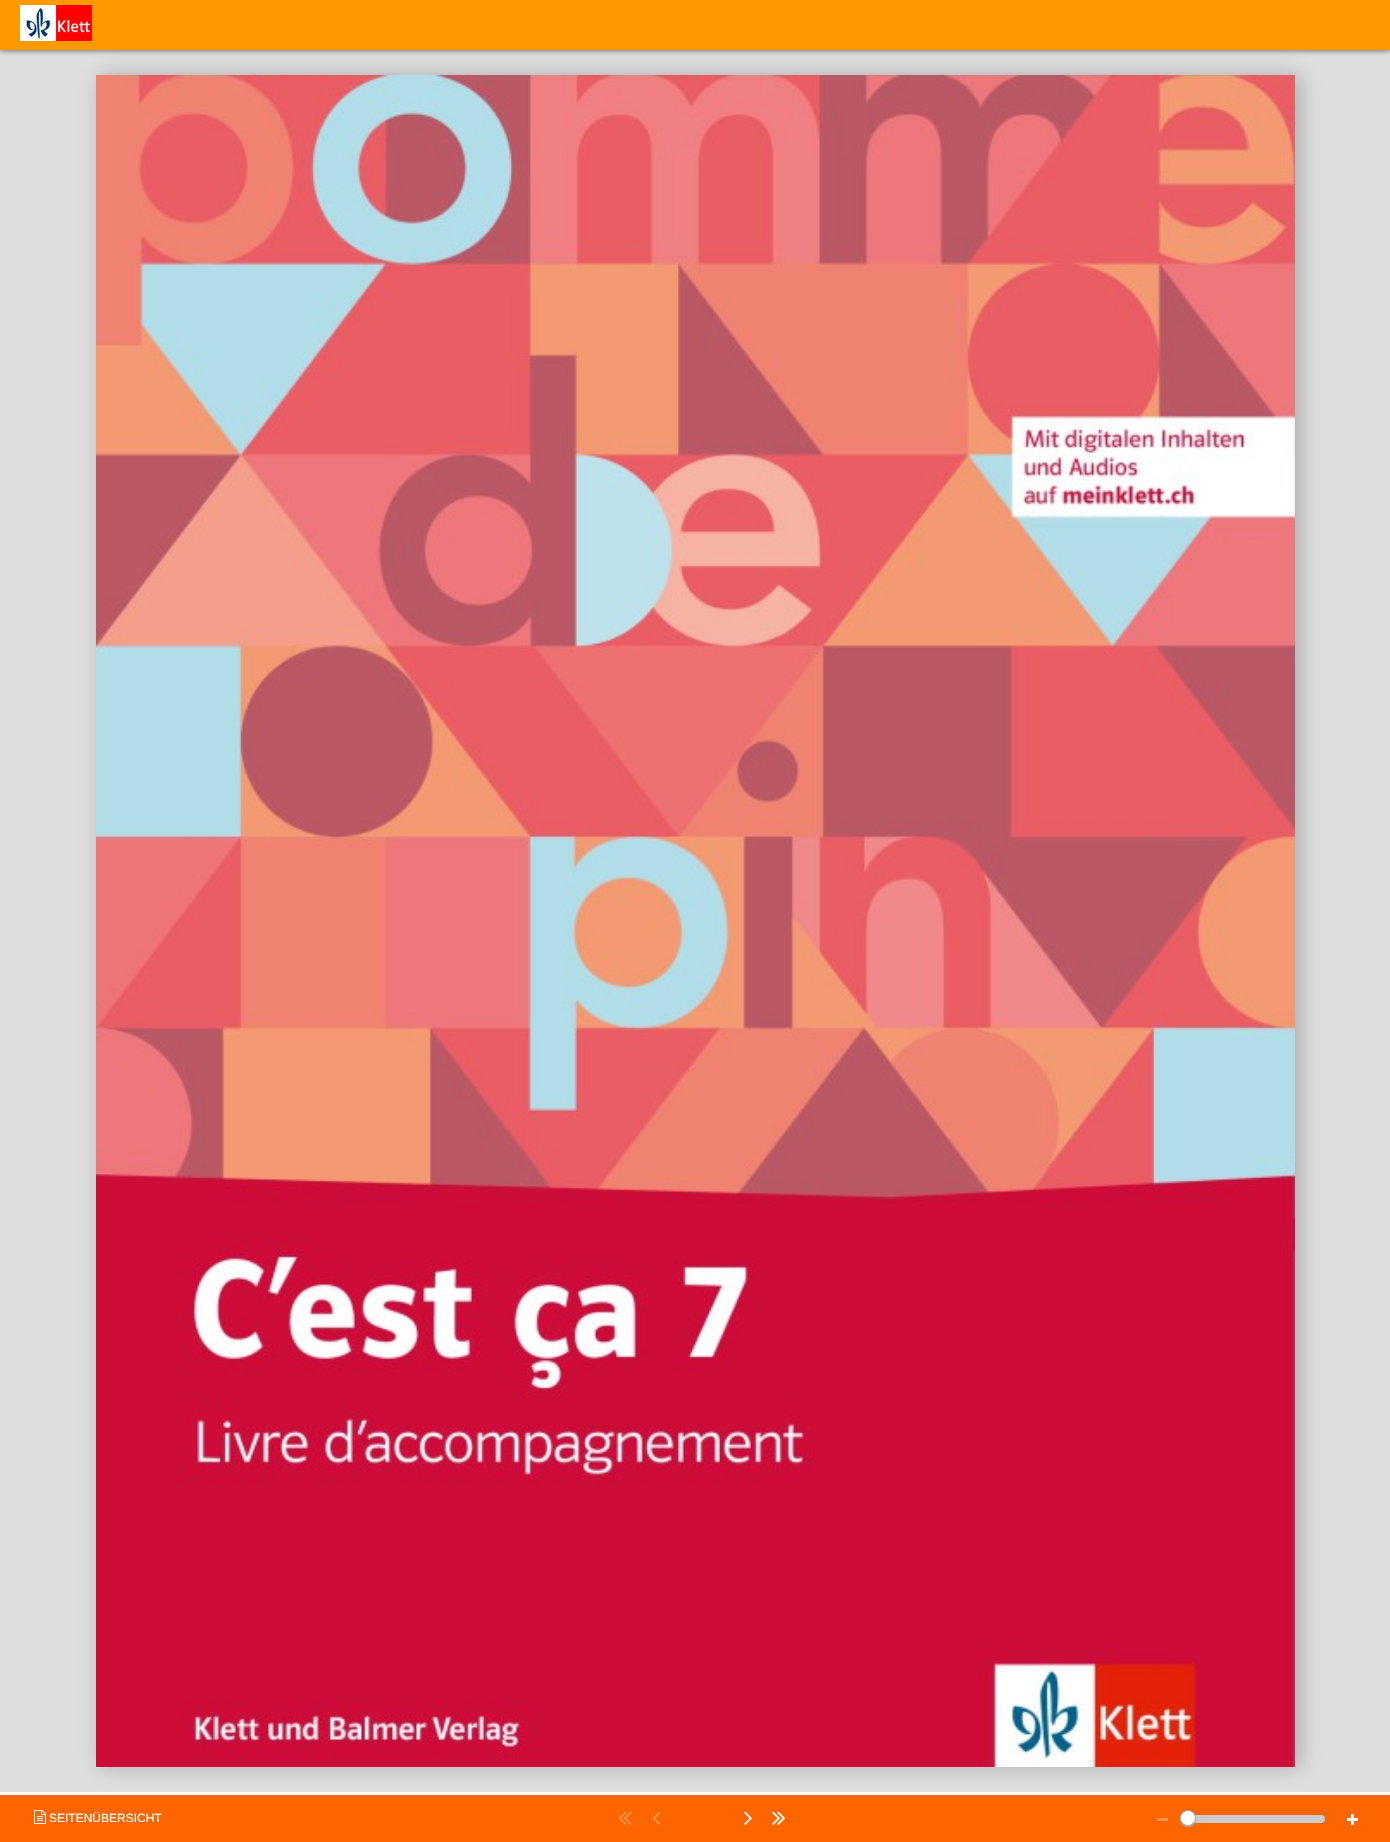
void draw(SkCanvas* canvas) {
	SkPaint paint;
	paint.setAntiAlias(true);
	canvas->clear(0xffdedede);
	paint.setColor(0xff777777);
	paint.setMaskFilter(SkMaskFilter::MakeBlur(kNormal_SkBlurStyle, 2.5));
	canvas->drawRect(SkRect::MakeXYWH(0, 1, 1390, 50), paint);
	paint.setMaskFilter(nullptr);
	paint.setColor(0x4d323232);
	paint.setMaskFilter(SkMaskFilter::MakeBlur(kNormal_SkBlurStyle, 10));
	canvas->drawRect(SkRect::MakeXYWH(101, 75, 1199, 1692), paint);
	paint.setMaskFilter(nullptr);
	paint.setColor(0xffff9900);
	canvas->drawRect(SkRect::MakeXYWH(0, 0, 1390, 50), paint);
	canvas->drawImageRect(SkImages::DeferredFromEncodedData(SkData::MakeFromFileName("img1.png")), SkRect::MakeXYWH(20, 5, 72, 36), SkSamplingOptions());
	canvas->drawImageRect(SkImages::DeferredFromEncodedData(SkData::MakeFromFileName("img2.png")), SkRect::MakeXYWH(96, 75, 1199, 1692), SkSamplingOptions());
	paint.setColor(0xfffd6500);
	canvas->drawRect(SkRect::MakeXYWH(0, 1795, 1390, 47), paint);
	paint.setColor(0xffffffff);
	canvas->drawRect(SkRect::MakeXYWH(0, 1792, 1390, 3), paint);
	canvas->drawImageRect(SkImages::DeferredFromEncodedData(SkData::MakeFromFileName("img3.png")), SkRect::MakeXYWH(34, 1810, 12, 14), SkSamplingOptions());
	SkFont f1(fontMgr->matchFamilyStyle("Liberation Sans", SkFontStyle::Normal()), 12);
	f1.setSubpixel(true);
	canvas->drawString("SEITENÜBERSICHT", 49, 1822, f1, paint);
	canvas->drawImageRect(SkImages::DeferredFromEncodedData(SkData::MakeFromFileName("img4.png")), SkRect::MakeXYWH(618, 1811, 14, 14), SkSamplingOptions());
	canvas->drawImageRect(SkImages::DeferredFromEncodedData(SkData::MakeFromFileName("img5.png")), SkRect::MakeXYWH(652, 1811, 9, 14), SkSamplingOptions());
	canvas->drawImageRect(SkImages::DeferredFromEncodedData(SkData::MakeFromFileName("img6.png")), SkRect::MakeXYWH(744, 1811, 8, 14), SkSamplingOptions());
	canvas->drawImageRect(SkImages::DeferredFromEncodedData(SkData::MakeFromFileName("img7.png")), SkRect::MakeXYWH(772, 1811, 14, 14), SkSamplingOptions());
	paint.setColor(0xfffe934d);
	canvas->drawRect(SkRect::MakeXYWH(1157, 1818, 11, 3), paint);
	paint.setColor(0xffcccccc);
	canvas->drawRoundRect(SkRect::MakeXYWH(1190, 1815, 135, 8), 4, 4, paint);
	paint.setColor(0xffaaaaaa);
	paint.setMaskFilter(SkMaskFilter::MakeBlur(kNormal_SkBlurStyle, 0.5));
	canvas->drawRoundRect(SkRect::MakeXYWH(1180, 1811, 16, 16), 8, 8, paint);
	paint.setMaskFilter(nullptr);
	paint.setColor(0xffffffff);
	canvas->drawCircle(1188, 1818, 7.5, paint);
	paint.setStroke(true);
	paint.setStrokeWidth(1);
	paint.setColor(0xffaaaaaa);
	canvas->drawCircle(1188, 1818, 7.5, paint);
	canvas->drawImageRect(SkImages::DeferredFromEncodedData(SkData::MakeFromFileName("img8.png")), SkRect::MakeXYWH(1347, 1814, 11, 11), SkSamplingOptions());
}
